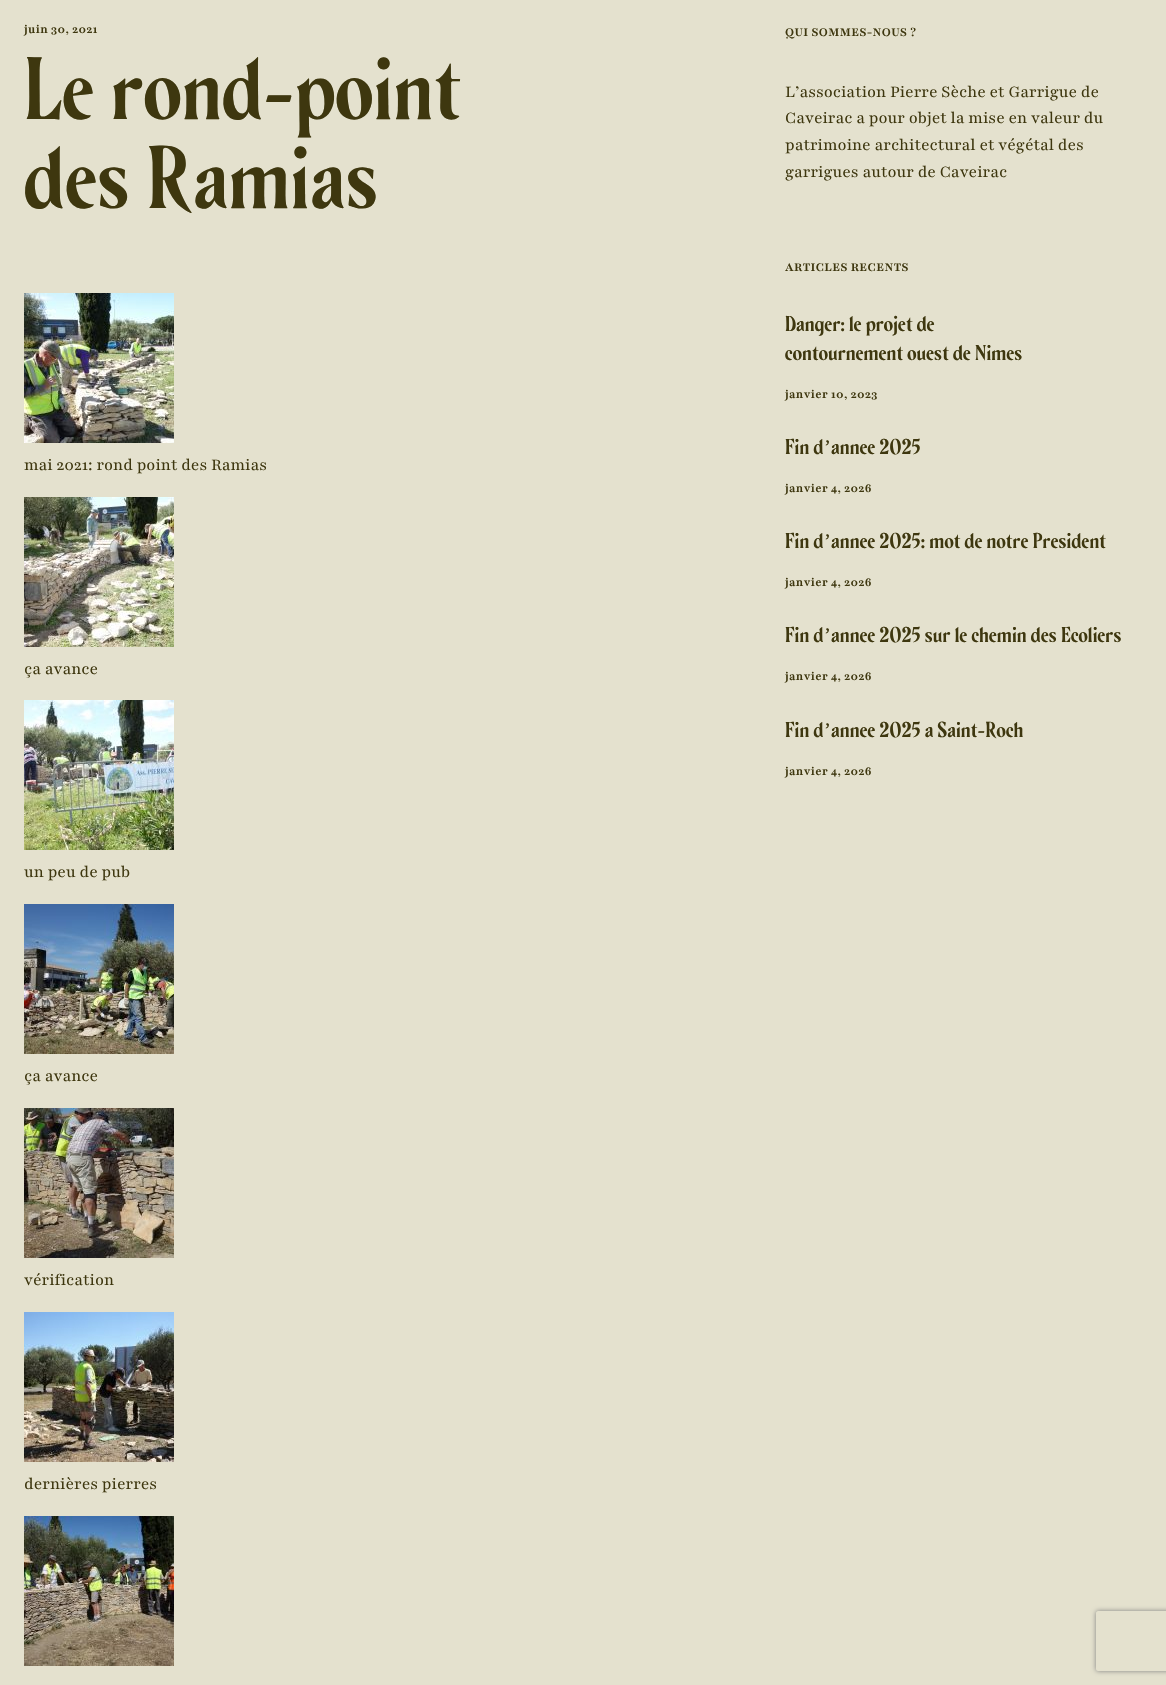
void draw(SkCanvas* canvas) {
	SkPaint paint;
	paint.setAntiAlias(true);
	auto spacedText = [&](const char* s, float x, float y, const SkFont& font, const SkPaint& ink, float letter, float word) {
		std::vector<SkGlyphID> glyphs(font.countText(s, strlen(s), SkTextEncoding::kUTF8));
		std::vector<float> xs(glyphs.size());
		font.textToGlyphs(s, strlen(s), SkTextEncoding::kUTF8, glyphs);
		font.getXPos(glyphs, xs, x);
		float extra = 0;
		for (size_t i = 0; i < glyphs.size(); i++) {
			xs[i] += extra;
			extra += letter + word * (glyphs[i] == font.unicharToGlyph(' '));
		}
		canvas->drawTextBlob(SkTextBlob::MakeFromPosHGlyphs(glyphs, xs, y, font), 0, 0, ink);
	};
	auto svgPath = [&](const char* data, bool evenOdd = false) {
		SkPath result = *SkParsePath::FromSVGString(data);
		if (evenOdd) result.setFillType(SkPathFillType::kEvenOdd);
		return result;
	};
	canvas->clear(0xffe4e1ce);
	SkFont f1(fontMgr->matchFamilyStyle("Playfair", SkFontStyle::Bold()), 13.25);
	f1.setSubpixel(true);
	paint.setColor(0xff3e370f);
	spacedText("juin 30, 2021", 24, 33, f1, paint, 0.4, 0);
	SkFont f2(fontMgr->matchFamilyStyle("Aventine", SkFontStyle::Normal()), 85);
	f2.setSubpixel(true);
	spacedText("Le rond-point", 24, 119, f2, paint, 0.4, 0);
	spacedText("des Ramias", 24, 208, f2, paint, 0.4, 0);
	canvas->drawImageRect(SkImages::DeferredFromEncodedData(SkData::MakeFromFileName("img1.png")), SkRect::MakeXYWH(24, 293, 150, 150), SkSamplingOptions());
	SkFont f3(fontMgr->matchFamilyStyle("Playfair", SkFontStyle::Normal()), 18);
	f3.setSubpixel(true);
	canvas->drawString("mai 2021: rond point des Ramias", 24, 470, f3, paint);
	canvas->drawImageRect(SkImages::DeferredFromEncodedData(SkData::MakeFromFileName("img2.png")), SkRect::MakeXYWH(24, 497, 150, 150), SkSamplingOptions());
	canvas->drawString("ça avance", 24, 674, f3, paint);
	canvas->drawImageRect(SkImages::DeferredFromEncodedData(SkData::MakeFromFileName("img3.png")), SkRect::MakeXYWH(24, 700, 150, 150), SkSamplingOptions());
	canvas->drawString("un peu de pub", 24, 877, f3, paint);
	canvas->drawImageRect(SkImages::DeferredFromEncodedData(SkData::MakeFromFileName("img4.png")), SkRect::MakeXYWH(24, 904, 150, 150), SkSamplingOptions());
	canvas->drawString("ça avance", 24, 1081, f3, paint);
	canvas->drawImageRect(SkImages::DeferredFromEncodedData(SkData::MakeFromFileName("img5.png")), SkRect::MakeXYWH(24, 1108, 150, 150), SkSamplingOptions());
	canvas->drawString("vérification", 24, 1285, f3, paint);
	canvas->drawImageRect(SkImages::DeferredFromEncodedData(SkData::MakeFromFileName("img6.png")), SkRect::MakeXYWH(24, 1312, 150, 150), SkSamplingOptions());
	canvas->drawString("dernières pierres", 24, 1489, f3, paint);
	canvas->drawImageRect(SkImages::DeferredFromEncodedData(SkData::MakeFromFileName("img7.png")), SkRect::MakeXYWH(24, 1516, 150, 150), SkSamplingOptions());
	spacedText("QUI SOMMES-NOUS ?", 785, 36, f1, paint, 0.4, 0);
	canvas->drawString("L’association Pierre Sèche et Garrigue de", 785, 97, f3, paint);
	canvas->drawString("Caveirac a pour objet la mise en valeur du", 785, 123, f3, paint);
	canvas->drawString("patrimoine architectural et végétal des", 785, 150, f3, paint);
	canvas->drawString("garrigues autour de Caveirac", 785, 177, f3, paint);
	spacedText("ARTICLES RECENTS", 785, 271, f1, paint, 0.4, 0);
	SkFont f4(fontMgr->matchFamilyStyle("Aventine", SkFontStyle::Normal()), 20.75);
	f4.setSubpixel(true);
	spacedText("Danger: le projet de", 785, 331, f4, paint, 0.15, 0);
	spacedText("contournement ouest de Nîmes", 785, 360, f4, paint, 0.15, 0);
	spacedText("janvier 10, 2023", 785, 398, f1, paint, 0.4, 0);
	spacedText("Fin d", 785, 454, f4, paint, 0.15, 0);
	SkFont f5(fontMgr->matchFamilyStyle("Liberation Serif", SkFontStyle::Normal()), 20.75);
	f5.setSubpixel(true);
	spacedText("’", 824, 454, f5, paint, 0.15, 0);
	spacedText("année 2025", 831, 454, f4, paint, 0.15, 0);
	spacedText("janvier 4, 2026", 785, 492, f1, paint, 0.4, 0);
	spacedText("Fin d", 785, 548, f4, paint, 0.15, 0);
	spacedText("’", 824, 548, f5, paint, 0.15, 0);
	spacedText("année 2025: mot de notre Président", 831, 548, f4, paint, 0.15, 0);
	spacedText("janvier 4, 2026", 785, 586, f1, paint, 0.4, 0);
	spacedText("Fin d", 785, 642, f4, paint, 0.15, 0);
	spacedText("’", 824, 642, f5, paint, 0.15, 0);
	spacedText("année 2025 sur le chemin des Ecoliers", 831, 642, f4, paint, 0.15, 0);
	spacedText("janvier 4, 2026", 785, 680, f1, paint, 0.4, 0);
	spacedText("Fin d", 785, 737, f4, paint, 0.15, 0);
	spacedText("’", 824, 737, f5, paint, 0.15, 0);
	spacedText("année 2025 à Saint-Roch", 831, 737, f4, paint, 0.15, 0);
	spacedText("janvier 4, 2026", 785, 775, f1, paint, 0.4, 0);
	canvas->save();
	canvas->clipPath(svgPath("M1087 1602H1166V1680H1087ZM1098 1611H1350C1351 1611 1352 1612 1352 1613V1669C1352 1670 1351 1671 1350 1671H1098C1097 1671 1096 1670 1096 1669V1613C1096 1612 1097 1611 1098 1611Z", true), true);
	paint.setColor(0xff808080);
	paint.setMaskFilter(SkMaskFilter::MakeBlur(kNormal_SkBlurStyle, 2.5));
	canvas->drawRoundRect(SkRect::MakeXYWH(1096, 1611, 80, 60), 2, 2, paint);
	paint.setMaskFilter(nullptr);
	canvas->restore();
}
